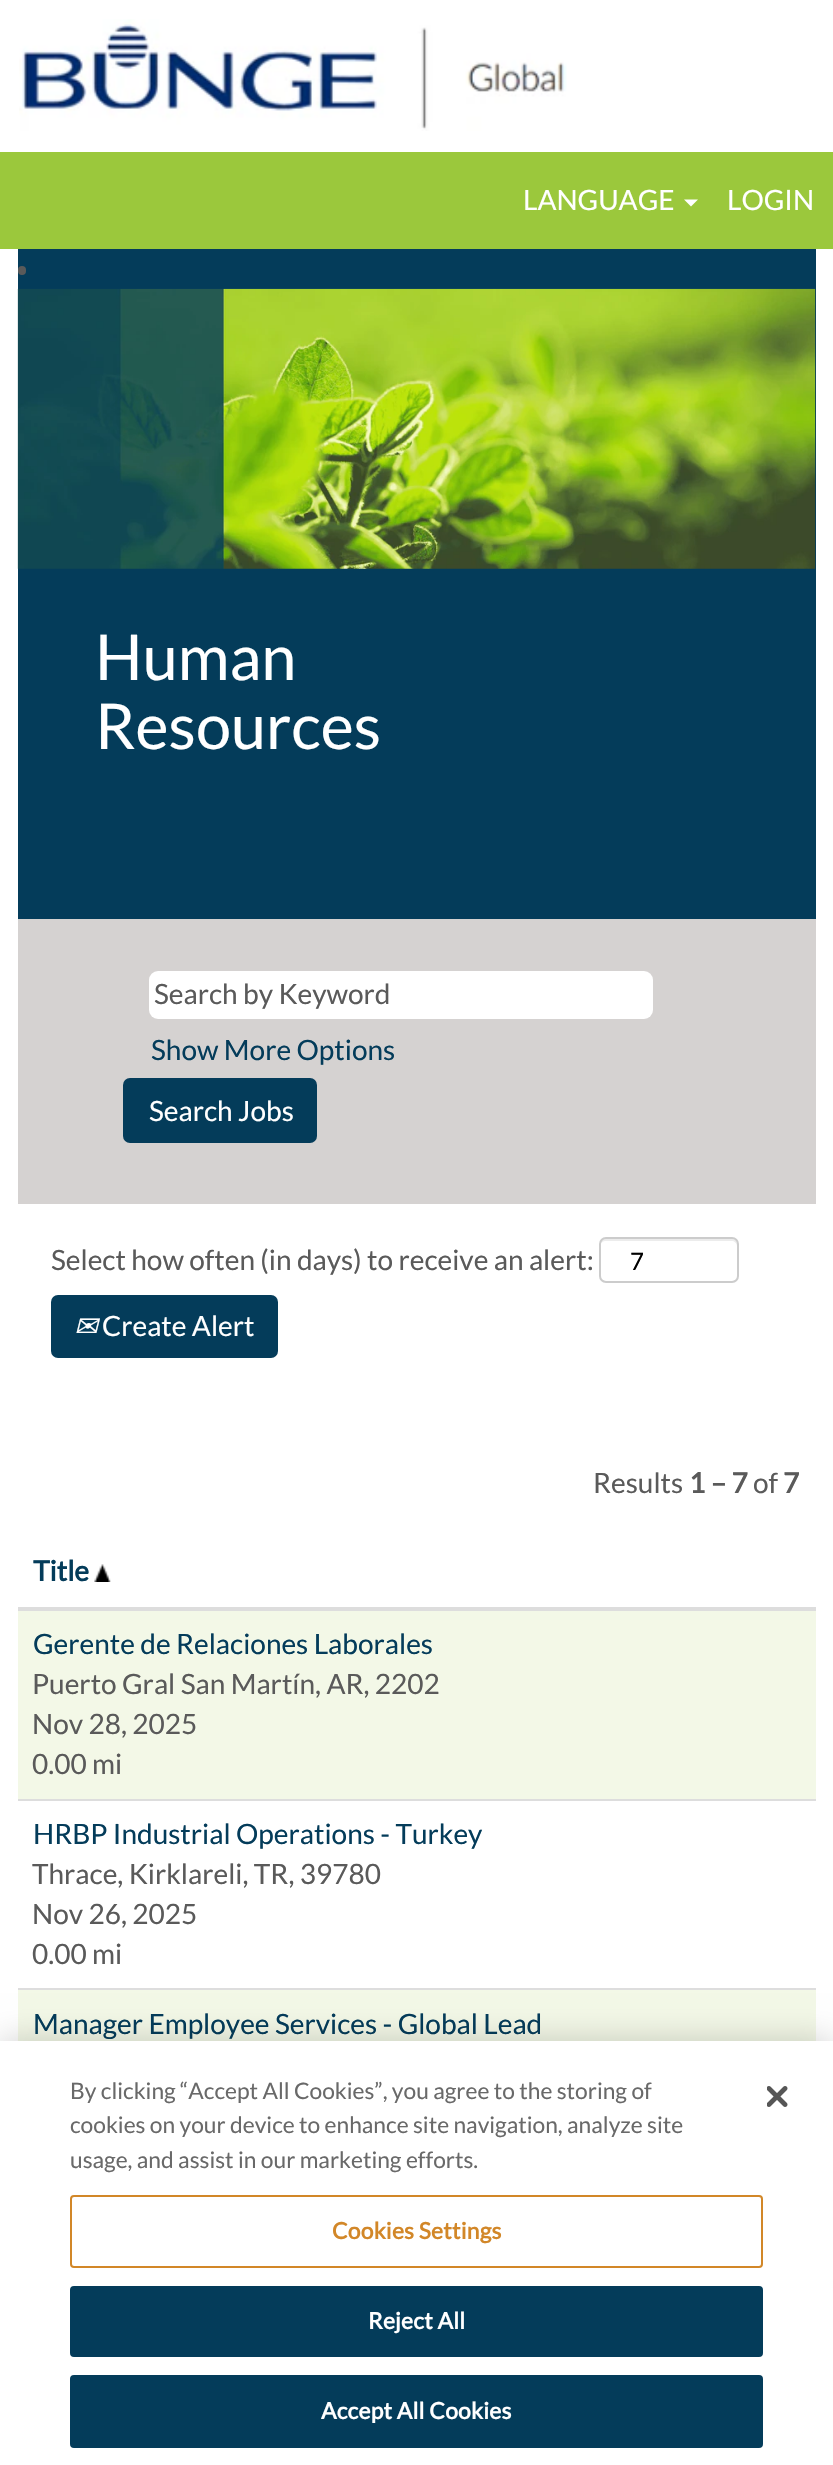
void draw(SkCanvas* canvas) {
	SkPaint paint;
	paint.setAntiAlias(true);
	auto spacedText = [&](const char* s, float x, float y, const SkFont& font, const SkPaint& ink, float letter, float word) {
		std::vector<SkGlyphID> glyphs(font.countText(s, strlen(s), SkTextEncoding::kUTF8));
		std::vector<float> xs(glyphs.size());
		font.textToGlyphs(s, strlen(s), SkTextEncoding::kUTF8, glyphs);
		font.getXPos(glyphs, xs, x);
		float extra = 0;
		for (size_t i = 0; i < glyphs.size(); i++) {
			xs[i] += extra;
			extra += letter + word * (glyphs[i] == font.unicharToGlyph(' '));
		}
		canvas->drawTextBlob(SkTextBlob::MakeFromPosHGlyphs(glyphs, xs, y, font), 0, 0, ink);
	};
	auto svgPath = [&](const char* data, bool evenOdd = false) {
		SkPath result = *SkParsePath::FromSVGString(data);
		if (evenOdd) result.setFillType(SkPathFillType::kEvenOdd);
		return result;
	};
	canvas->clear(0xffffffff);
	canvas->drawImageRect(SkImages::DeferredFromEncodedData(SkData::MakeFromFileName("img1.png")), SkRect::MakeXYWH(19, 19, 548, 112), SkSamplingOptions());
	paint.setColor(0xff9bc83c);
	canvas->drawRect(SkRect::MakeXYWH(0, 152, 833, 97), paint);
	SkFont f1(fontMgr->matchFamilyStyle("Lato", SkFontStyle::Normal()), 28);
	f1.setSubpixel(true);
	paint.setColor(0xffffffff);
	canvas->drawString("LANGUAGE", 523, 210, f1, paint);
	canvas->drawPath(svgPath("M684 199.5H698L691 206.5Z"), paint);
	canvas->drawString("LOGIN", 727, 210, f1, paint);
	paint.setColor(0xff043c5a);
	canvas->drawRect(SkRect::MakeXYWH(18, 249, 798, 670), paint);
	paint.setColor(0xff5a5a5a);
	canvas->drawRoundRect(SkRect::MakeXYWH(18, 266, 8, 9), 4, 4, paint);
	canvas->drawImageRect(SkImages::DeferredFromEncodedData(SkData::MakeFromFileName("img2.png")), SkRect::MakeXYWH(17, 288, 799, 281), SkSamplingOptions());
	SkFont f2(fontMgr->matchFamilyStyle("Lato", SkFontStyle::Normal()), 63);
	f2.setSubpixel(true);
	paint.setColor(0xffffffff);
	canvas->drawString("Human", 95, 680, f2, paint);
	canvas->drawString("Resources", 95, 749, f2, paint);
	paint.setColor(0xffd5d2d1);
	canvas->drawRect(SkRect::MakeXYWH(18, 919, 798, 285), paint);
	paint.setColor(0xffffffff);
	canvas->drawRoundRect(SkRect::MakeXYWH(149, 971, 504, 48), 9, 9, paint);
	paint.setColor(0xff5a5a5a);
	canvas->drawString("Search by Keyword", 154, 1004, f1, paint);
	paint.setColor(0xff043c5a);
	canvas->drawString("Show More Options", 151, 1060, f1, paint);
	canvas->drawRoundRect(SkRect::MakeXYWH(123, 1078, 194, 65), 7, 7, paint);
	paint.setColor(0xffffffff);
	canvas->drawString("Search Jobs", 149, 1121, f1, paint);
	paint.setColor(0xff5a5a5a);
	canvas->drawString("Select how often (in days) to receive an alert:", 51, 1270, f1, paint);
	paint.setColor(0xffececec);
	canvas->drawPath(svgPath("M606 1241H732C734 1241 737 1243 737 1246V1244C737 1241 735 1239 732 1239H605C602 1239 600 1241 600 1244V1246C600 1243 603 1241 606 1241Z"), paint);
	paint.setStroke(true);
	paint.setStrokeWidth(2);
	paint.setColor(0xffcccccc);
	canvas->drawRoundRect(SkRect::MakeXYWH(600, 1238, 138, 44), 6, 6, paint);
	SkFont f3(fontMgr->matchFamilyStyle("Lato", SkFontStyle::Normal()), 24);
	f3.setSubpixel(true);
	paint.setStroke(false);
	paint.setColor(0xff000000);
	canvas->drawString("7", 630, 1270, f3, paint);
	paint.setColor(0xff043c5a);
	canvas->drawRoundRect(SkRect::MakeXYWH(51, 1295, 227, 63), 7, 7, paint);
	SkFont f4(fontMgr->matchFamilyStyle("DejaVu Sans", SkFontStyle::Italic()), 28);
	f4.setSubpixel(true);
	paint.setColor(0xffffffff);
	canvas->drawString("✉", 74, 1336, f4, paint);
	canvas->drawString("Create Alert", 102, 1336, f1, paint);
	paint.setColor(0xff5a5a5a);
	canvas->drawString("Results", 593, 1493, f1, paint);
	SkFont f5(fontMgr->matchFamilyStyle("Lato", SkFontStyle::Bold()), 28);
	f5.setSubpixel(true);
	canvas->drawString("1 – 7", 689, 1493, f5, paint);
	canvas->drawString("of", 753, 1493, f1, paint);
	canvas->drawString("7", 783, 1493, f5, paint);
	paint.setColor(0xffdddddd);
	canvas->drawRect(SkRect::MakeXYWH(18, 1607, 798, 4), paint);
	paint.setColor(0xff043c5a);
	canvas->drawString("Title", 33, 1581, f5, paint);
	canvas->drawImageRect(SkImages::DeferredFromEncodedData(SkData::MakeFromFileName("img3.png")), SkRect::MakeXYWH(94, 1564, 17, 18), SkSamplingOptions());
	paint.setColor(0xfff3f8e7);
	canvas->drawRect(SkRect::MakeXYWH(18, 1611, 798, 188), paint);
	paint.setColor(0xff043c5a);
	canvas->drawString("Gerente de Relaciones Laborales", 33, 1654, f1, paint);
	paint.setColor(0xff5a5a5a);
	canvas->drawString("Puerto Gral San Martín, AR, 2202", 32, 1694, f1, paint);
	canvas->drawString("Nov 28, 2025", 32, 1734, f1, paint);
	canvas->drawString("0.00 mi", 32, 1774, f1, paint);
	paint.setColor(0xffdddddd);
	canvas->drawRect(SkRect::MakeXYWH(18, 1799, 798, 2), paint);
	paint.setColor(0xff043c5a);
	canvas->drawString("HRBP Industrial Operations - Turkey", 33, 1844, f1, paint);
	paint.setColor(0xff5a5a5a);
	canvas->drawString("Thrace, Kirklareli, TR, 39780", 32, 1884, f1, paint);
	canvas->drawString("Nov 26, 2025", 32, 1924, f1, paint);
	canvas->drawString("0.00 mi", 32, 1964, f1, paint);
	paint.setColor(0xfff3f8e7);
	canvas->drawRect(SkRect::MakeXYWH(18, 1990, 798, 51), paint);
	paint.setColor(0xffdddddd);
	canvas->drawRect(SkRect::MakeXYWH(18, 1988, 798, 2), paint);
	paint.setColor(0xff043c5a);
	canvas->drawString("Manager Employee Services - Global Lead", 33, 2034, f1, paint);
	paint.setColor(0x33000000);
	paint.setMaskFilter(SkMaskFilter::MakeBlur(kNormal_SkBlurStyle, 16));
	canvas->drawRect(SkRect::MakeXYWH(0, 2041, 833, 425), paint);
	paint.setMaskFilter(nullptr);
	paint.setColor(0xffffffff);
	canvas->drawRect(SkRect::MakeXYWH(0, 2041, 833, 424), paint);
	SkFont f6(fontMgr->matchFamilyStyle("Lato", SkFontStyle::Normal()), 22.75);
	f6.setSubpixel(true);
	paint.setColor(0xff696969);
	canvas->drawString("By clicking “Accept All Cookies”, you agree to the storing of", 70, 2099, f6, paint);
	canvas->drawString("cookies on your device to enhance site navigation, analyze site", 70, 2133, f6, paint);
	canvas->drawString("usage, and assist in our marketing efforts.", 70, 2168, f6, paint);
	paint.setStroke(true);
	paint.setColor(0xffd28728);
	canvas->drawRoundRect(SkRect::MakeXYWH(71, 2196, 691, 71), 3, 3, paint);
	SkFont f7(fontMgr->matchFamilyStyle("Lato", SkFontStyle::Bold()), 22.75);
	f7.setSubpixel(true);
	paint.setStroke(false);
	spacedText("Cookies Settings", 332, 2239, f7, paint, 0.25, 0);
	paint.setColor(0xff043c5a);
	canvas->drawRoundRect(SkRect::MakeXYWH(71, 2287, 691, 69), 3, 3, paint);
	paint.setStroke(true);
	canvas->drawRoundRect(SkRect::MakeXYWH(71, 2287, 691, 69), 3, 3, paint);
	paint.setStroke(false);
	paint.setColor(0xffffffff);
	spacedText("Reject All", 368, 2329, f7, paint, 0.25, 0);
	paint.setColor(0xff043c5a);
	canvas->drawRoundRect(SkRect::MakeXYWH(71, 2376, 691, 71), 3, 3, paint);
	paint.setStroke(true);
	canvas->drawRoundRect(SkRect::MakeXYWH(71, 2376, 691, 71), 3, 3, paint);
	paint.setStroke(false);
	paint.setColor(0xffffffff);
	spacedText("Accept All Cookies", 321, 2419, f7, paint, 0.25, 0);
	canvas->drawImageRect(SkImages::DeferredFromEncodedData(SkData::MakeFromFileName("img4.png")), SkRect::MakeXYWH(767, 2086, 21, 21), SkSamplingOptions());
}
